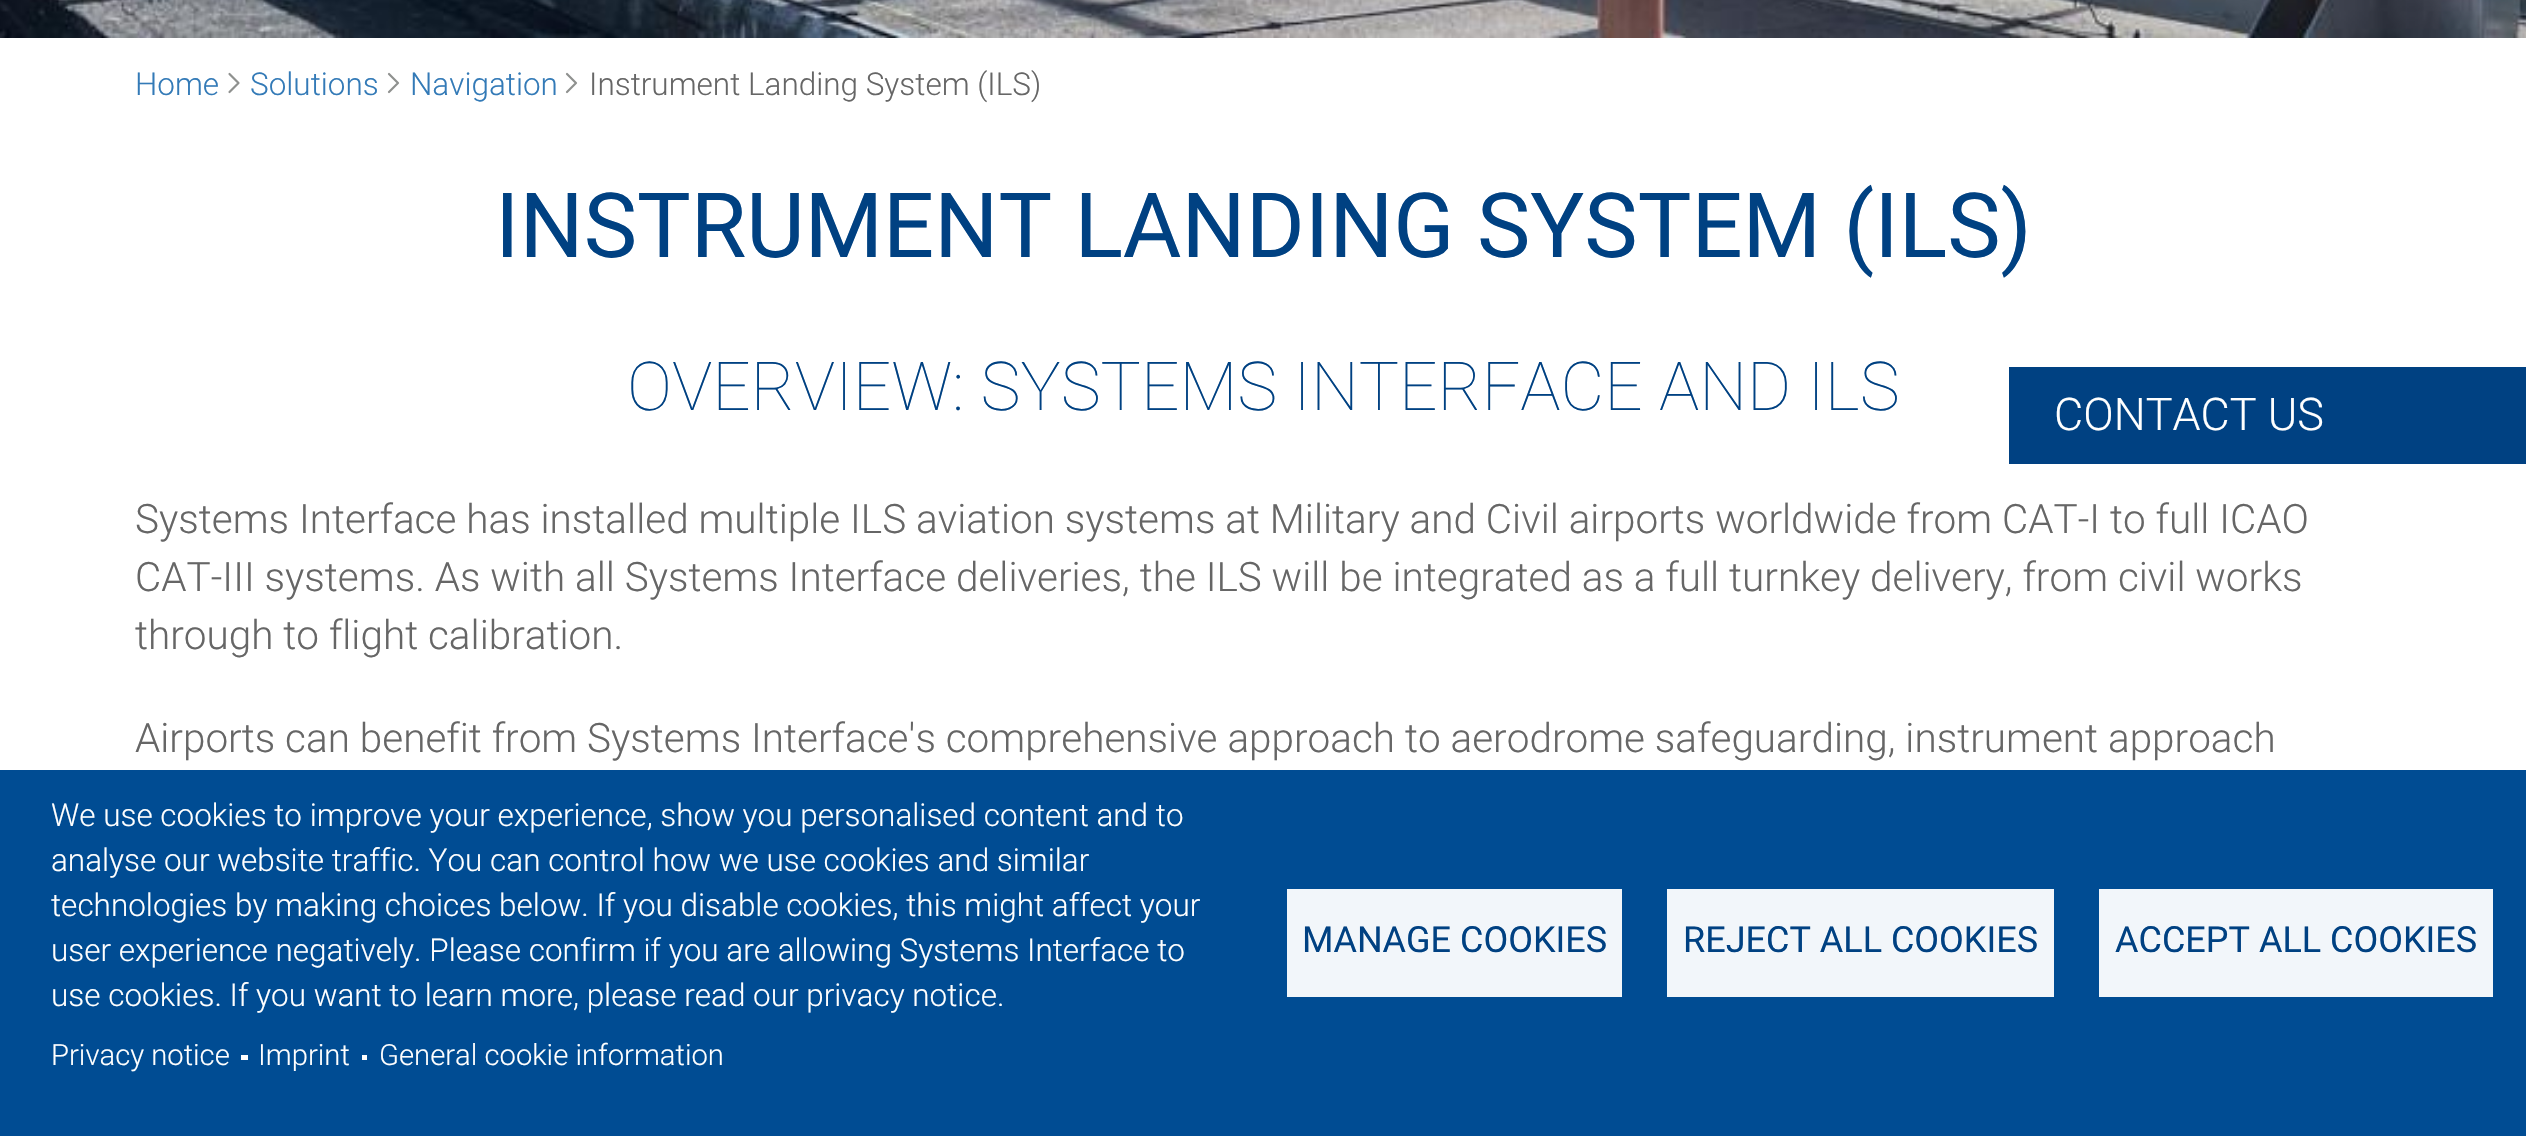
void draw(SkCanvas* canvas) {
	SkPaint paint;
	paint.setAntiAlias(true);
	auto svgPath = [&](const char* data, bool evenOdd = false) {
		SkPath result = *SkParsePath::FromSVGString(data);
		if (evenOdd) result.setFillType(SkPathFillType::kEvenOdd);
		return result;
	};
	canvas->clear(0xffffffff);
	canvas->drawImageRect(SkImages::DeferredFromEncodedData(SkData::MakeFromFileName("img1.png")), SkRect::MakeXYWH(0, 0, 2526, 38), SkSamplingOptions());
	SkFont f1(fontMgr->matchFamilyStyle("Roboto", SkFontStyle(300, SkFontStyle::kNormal_Width, SkFontStyle::kUpright_Slant)), 31.5);
	f1.setSubpixel(true);
	paint.setColor(0xff337ab7);
	canvas->drawString("Home", 135, 95, f1, paint);
	paint.setStroke(true);
	paint.setStrokeWidth(2.2);
	paint.setStrokeCap(SkPaint::kRound_Cap);
	paint.setStrokeJoin(SkPaint::kRound_Join);
	paint.setColor(0xff8f918f);
	canvas->drawPath(svgPath("M229.5 74L238.5 83L229.5 92"), paint);
	paint.setStroke(false);
	paint.setColor(0xff337ab7);
	canvas->drawString("Solutions", 250, 95, f1, paint);
	paint.setStroke(true);
	paint.setColor(0xff8f918f);
	canvas->drawPath(svgPath("M389 74L398 83L389 92"), paint);
	paint.setStroke(false);
	paint.setColor(0xff337ab7);
	canvas->drawString("Navigation", 410, 95, f1, paint);
	paint.setStroke(true);
	paint.setColor(0xff8f918f);
	canvas->drawPath(svgPath("M567 74L576 83L567 92"), paint);
	paint.setStroke(false);
	paint.setColor(0xff666666);
	canvas->drawString("Instrument Landing System (ILS)", 589, 95, f1, paint);
	SkFont f2(fontMgr->matchFamilyStyle("Roboto", SkFontStyle::Normal()), 90);
	f2.setSubpixel(true);
	paint.setColor(0xff004182);
	canvas->drawString("INSTRUMENT LANDING SYSTEM (ILS)", 495, 257, f2, paint);
	SkFont f3(fontMgr->matchFamilyStyle("Roboto", SkFontStyle(100, SkFontStyle::kNormal_Width, SkFontStyle::kUpright_Slant)), 67.5);
	f3.setSubpixel(true);
	canvas->drawString("OVERVIEW: SYSTEMS INTERFACE AND ILS", 627, 410, f3, paint);
	SkFont f4(fontMgr->matchFamilyStyle("Roboto", SkFontStyle(300, SkFontStyle::kNormal_Width, SkFontStyle::kUpright_Slant)), 40.5);
	f4.setSubpixel(true);
	paint.setColor(0xff666666);
	canvas->drawString("Systems Interface has installed multiple ILS aviation systems at Military and Civil airports worldwide from CAT-I to full ICAO", 135, 533, f4, paint);
	canvas->drawString("CAT-III systems. As with all Systems Interface deliveries, the ILS will be integrated as a full turnkey delivery, from civil works", 135, 591, f4, paint);
	canvas->drawString("through to flight calibration.", 135, 649, f4, paint);
	canvas->drawString("Airports can benefit from Systems Interface's comprehensive approach to aerodrome safeguarding, instrument approach", 135, 752, f4, paint);
	paint.setColor(0xff004182);
	canvas->drawRect(SkRect::MakeXYWH(2009, 367, 517, 97), paint);
	SkFont f5(fontMgr->matchFamilyStyle("Roboto", SkFontStyle(300, SkFontStyle::kNormal_Width, SkFontStyle::kUpright_Slant)), 45);
	f5.setSubpixel(true);
	paint.setColor(0xffffffff);
	canvas->drawString("CONTACT US", 2054, 430, f5, paint);
	paint.setColor(0xff004c93);
	canvas->drawRect(SkRect::MakeXYWH(0, 770, 2526, 366), paint);
	paint.setColor(0xffffffff);
	canvas->drawString("We use cookies to improve your experience, show you personalised content and to", 51, 826, f1, paint);
	canvas->drawString("analyse our website traffic. You can control how we use cookies and similar", 51, 871, f1, paint);
	canvas->drawString("technologies by making choices below. If you disable cookies, this might affect your", 51, 916, f1, paint);
	canvas->drawString("user experience negatively. Please confirm if you are allowing Systems Interface to", 51, 961, f1, paint);
	canvas->drawString("use cookies. If you want to learn more, please read our privacy notice.", 51, 1006, f1, paint);
	SkFont f6(fontMgr->matchFamilyStyle("Roboto", SkFontStyle(300, SkFontStyle::kNormal_Width, SkFontStyle::kUpright_Slant)), 29.25);
	f6.setSubpixel(true);
	canvas->drawString("Privacy notice", 51, 1065, f6, paint);
	canvas->drawRect(SkRect::MakeXYWH(241, 1055, 7, 5), paint);
	canvas->drawString("Imprint", 258, 1065, f6, paint);
	canvas->drawRect(SkRect::MakeXYWH(362, 1055, 5, 5), paint);
	canvas->drawString("General cookie information", 379, 1065, f6, paint);
	paint.setColor(0xfff2f6fa);
	canvas->drawRect(SkRect::MakeXYWH(1287, 889, 335, 108), paint);
	SkFont f7(fontMgr->matchFamilyStyle("Roboto", SkFontStyle::Normal()), 36);
	f7.setSubpixel(true);
	paint.setColor(0xff004182);
	canvas->drawString("MANAGE COOKIES", 1302, 952, f7, paint);
	paint.setColor(0xfff2f6fa);
	canvas->drawRect(SkRect::MakeXYWH(1667, 889, 387, 108), paint);
	paint.setColor(0xff004182);
	canvas->drawString("REJECT ALL COOKIES", 1683, 952, f7, paint);
	paint.setColor(0xfff2f6fa);
	canvas->drawRect(SkRect::MakeXYWH(2099, 889, 394, 108), paint);
	paint.setColor(0xff004182);
	canvas->drawString("ACCEPT ALL COOKIES", 2115, 952, f7, paint);
}
